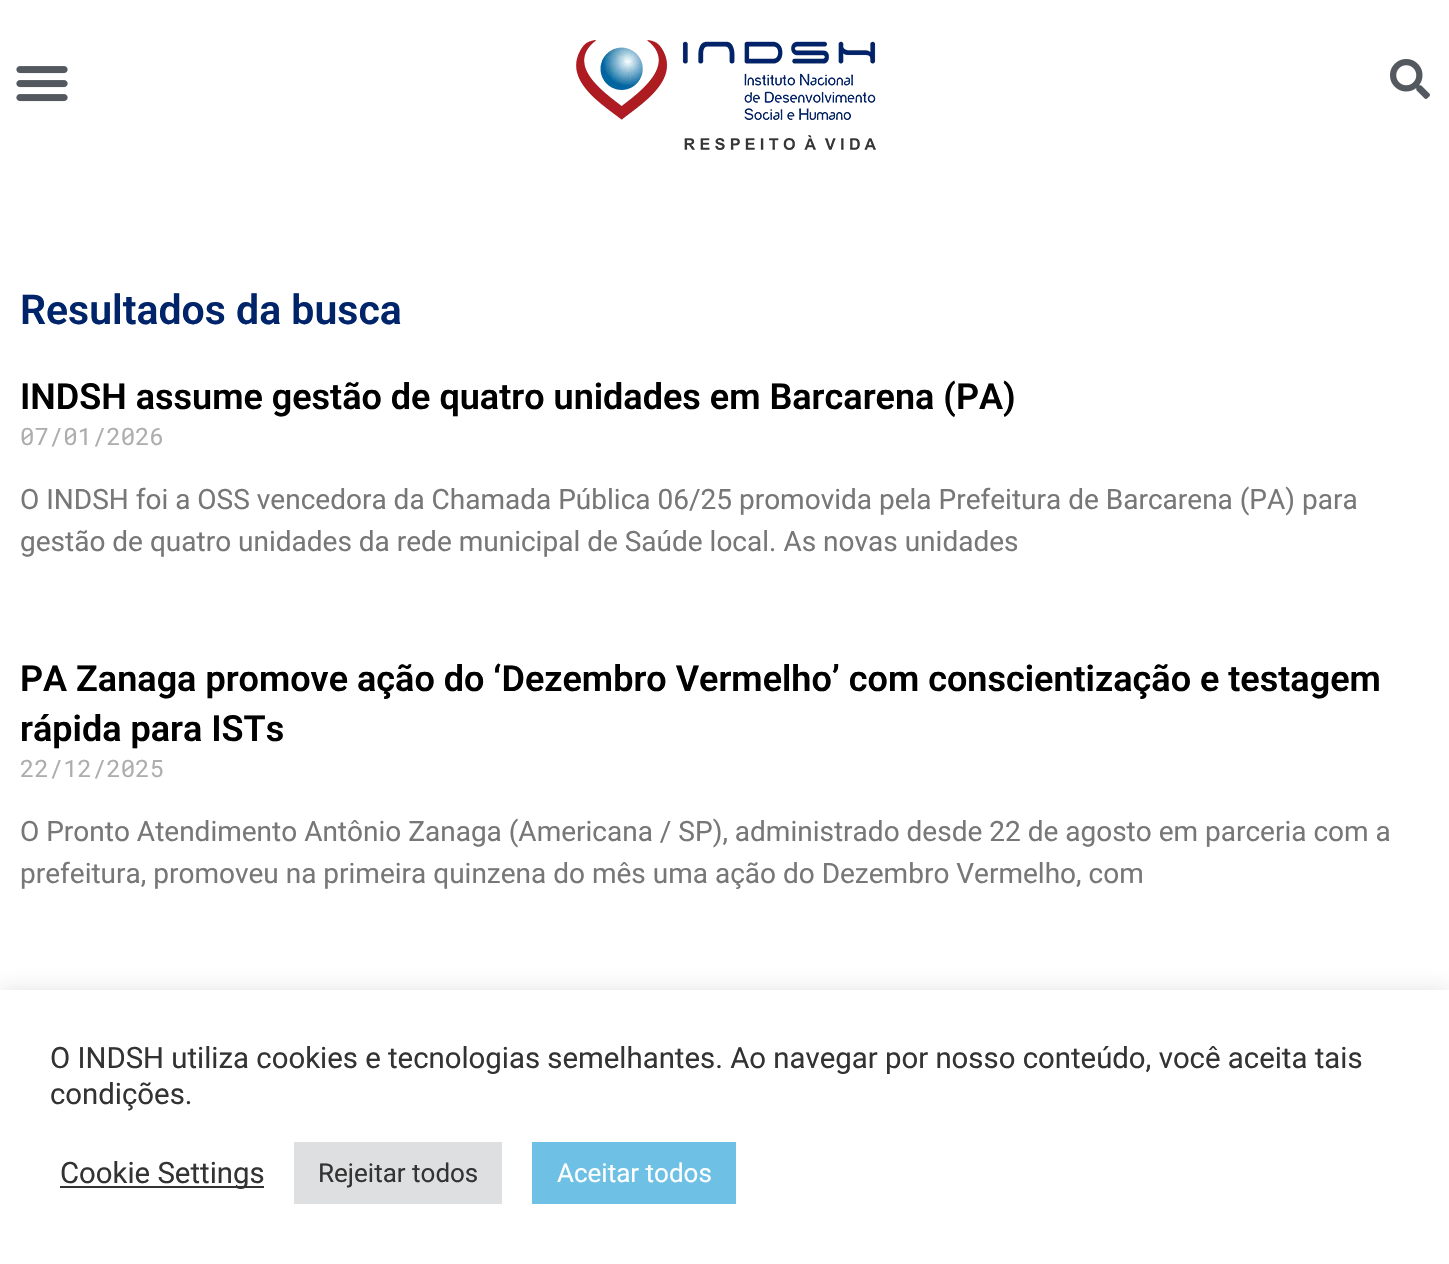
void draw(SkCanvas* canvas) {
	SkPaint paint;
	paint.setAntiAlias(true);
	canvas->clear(0xffffffff);
	canvas->drawImageRect(SkImages::DeferredFromEncodedData(SkData::MakeFromFileName("img1.png")), SkRect::MakeXYWH(16, 66, 52, 36), SkSamplingOptions());
	canvas->drawImageRect(SkImages::DeferredFromEncodedData(SkData::MakeFromFileName("img2.png")), SkRect::MakeXYWH(576, 40, 300, 110), SkSamplingOptions());
	canvas->drawImageRect(SkImages::DeferredFromEncodedData(SkData::MakeFromFileName("img3.png")), SkRect::MakeXYWH(1390, 59, 40, 40), SkSamplingOptions());
	SkFont f1(fontMgr->matchFamilyStyle("Roboto", SkFontStyle(600, SkFontStyle::kNormal_Width, SkFontStyle::kUpright_Slant)), 41);
	f1.setSubpixel(true);
	paint.setColor(0xff002469);
	canvas->drawString("Resultados da busca", 20, 324, f1, paint);
	SkFont f2(fontMgr->matchFamilyStyle("Roboto", SkFontStyle(600, SkFontStyle::kNormal_Width, SkFontStyle::kUpright_Slant)), 36);
	f2.setSubpixel(true);
	paint.setColor(0xff000000);
	canvas->drawString("INDSH assume gestão de quatro unidades em Barcarena (PA)", 20, 409, f2, paint);
	SkFont f3(fontMgr->matchFamilyStyle("Roboto Mono", SkFontStyle::Normal()), 24);
	f3.setSubpixel(true);
	paint.setColor(0xffadadad);
	canvas->drawString("07/01/2026", 20, 445, f3, paint);
	SkFont f4(fontMgr->matchFamilyStyle("Roboto", SkFontStyle::Normal()), 28);
	f4.setSubpixel(true);
	paint.setColor(0xff777777);
	canvas->drawString("O INDSH foi a OSS vencedora da Chamada Pública 06/25 promovida pela Prefeitura de Barcarena (PA) para", 20, 509, f4, paint);
	canvas->drawString("gestão de quatro unidades da rede municipal de Saúde local. As novas unidades", 20, 551, f4, paint);
	paint.setColor(0xff000000);
	canvas->drawString("PA Zanaga promove ação do ‘Dezembro Vermelho’ com conscientização e testagem", 20, 691, f2, paint);
	canvas->drawString("rápida para ISTs", 20, 741, f2, paint);
	paint.setColor(0xffadadad);
	canvas->drawString("22/12/2025", 20, 777, f3, paint);
	paint.setColor(0xff777777);
	canvas->drawString("O Pronto Atendimento Antônio Zanaga (Americana / SP), administrado desde 22 de agosto em parceria com a", 20, 841, f4, paint);
	canvas->drawString("prefeitura, promoveu na primeira quinzena do mês uma ação do Dezembro Vermelho, com", 20, 883, f4, paint);
	paint.setColor(0x4dacabab);
	paint.setMaskFilter(SkMaskFilter::MakeBlur(kNormal_SkBlurStyle, 10));
	canvas->drawRect(SkRect::MakeXYWH(0, 988, 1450, 274), paint);
	paint.setMaskFilter(nullptr);
	paint.setColor(0xffffffff);
	canvas->drawRect(SkRect::MakeXYWH(0, 990, 1449, 274), paint);
	SkFont f5(fontMgr->matchFamilyStyle("Roboto", SkFontStyle::Normal()), 29.35);
	f5.setSubpixel(true);
	paint.setColor(0xff333333);
	canvas->drawString("O INDSH utiliza cookies e tecnologias semelhantes. Ao navegar por nosso conteúdo, você aceita tais", 50, 1068, f5, paint);
	canvas->drawString("condições.", 50, 1104, f5, paint);
	canvas->drawRect(SkRect::MakeXYWH(60, 1186, 204, 2), paint);
	canvas->drawString("Cookie Settings", 60, 1183, f5, paint);
	paint.setColor(0xffdedfe0);
	canvas->drawRect(SkRect::MakeXYWH(294, 1142, 208, 62), paint);
	SkFont f6(fontMgr->matchFamilyStyle("Roboto", SkFontStyle::Normal()), 26);
	f6.setSubpixel(true);
	paint.setColor(0xff333333);
	canvas->drawString("Rejeitar todos", 318, 1182, f6, paint);
	paint.setColor(0xff6ec1e4);
	canvas->drawRect(SkRect::MakeXYWH(532, 1142, 204, 62), paint);
	paint.setColor(0xffffffff);
	canvas->drawString("Aceitar todos", 557, 1182, f6, paint);
}
